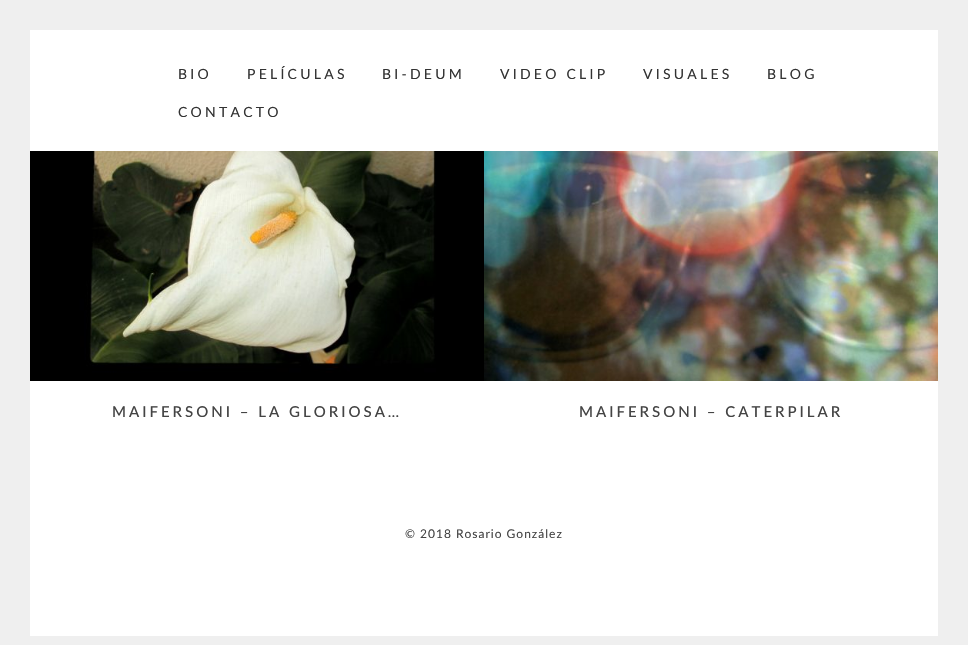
void draw(SkCanvas* canvas) {
	SkPaint paint;
	paint.setAntiAlias(true);
	auto spacedText = [&](const char* s, float x, float y, const SkFont& font, const SkPaint& ink, float letter, float word) {
		std::vector<SkGlyphID> glyphs(font.countText(s, strlen(s), SkTextEncoding::kUTF8));
		std::vector<float> xs(glyphs.size());
		font.textToGlyphs(s, strlen(s), SkTextEncoding::kUTF8, glyphs);
		font.getXPos(glyphs, xs, x);
		float extra = 0;
		for (size_t i = 0; i < glyphs.size(); i++) {
			xs[i] += extra;
			extra += letter + word * (glyphs[i] == font.unicharToGlyph(' '));
		}
		canvas->drawTextBlob(SkTextBlob::MakeFromPosHGlyphs(glyphs, xs, y, font), 0, 0, ink);
	};
	canvas->clear(0xffffffff);
	paint.setStroke(true);
	paint.setStrokeWidth(30);
	paint.setColor(0xffefefef);
	canvas->drawRect(SkRect::MakeXYWH(15, 15, 938, 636), paint);
	SkFont f1(fontMgr->matchFamilyStyle("Lato", SkFontStyle::Normal()), 14);
	f1.setSubpixel(true);
	paint.setStroke(false);
	paint.setColor(0xff333333);
	spacedText("BIO", 178, 79, f1, paint, 3.25, 0);
	spacedText("PELÍCULAS", 247, 79, f1, paint, 3.25, 0);
	spacedText("BI-DEUM", 382, 79, f1, paint, 3.25, 0);
	spacedText("VIDEO CLIP", 500, 79, f1, paint, 3.25, 0);
	spacedText("VISUALES", 643, 79, f1, paint, 3.25, 0);
	spacedText("BLOG", 767, 79, f1, paint, 3.25, 0);
	spacedText("CONTACTO", 178, 117, f1, paint, 3.25, 0);
	canvas->drawImageRect(SkImages::DeferredFromEncodedData(SkData::MakeFromFileName("img1.png")), SkRect::MakeXYWH(30, 151, 454, 230), SkSamplingOptions());
	SkFont f2(fontMgr->matchFamilyStyle("Lato", SkFontStyle(500, SkFontStyle::kNormal_Width, SkFontStyle::kUpright_Slant)), 15);
	f2.setSubpixel(true);
	paint.setColor(0xff444444);
	spacedText("MAIFERSONI – LA GLORIOSA…", 112, 417, f2, paint, 3, 0);
	canvas->drawImageRect(SkImages::DeferredFromEncodedData(SkData::MakeFromFileName("img2.png")), SkRect::MakeXYWH(484, 151, 454, 230), SkSamplingOptions());
	spacedText("MAIFERSONI – CATERPILAR", 579, 417, f2, paint, 3, 0);
	SkFont f3(fontMgr->matchFamilyStyle("Lato", SkFontStyle::Normal()), 12);
	f3.setSubpixel(true);
	spacedText("© 2018 Rosario González", 405, 538, f3, paint, 1, 0);
}
